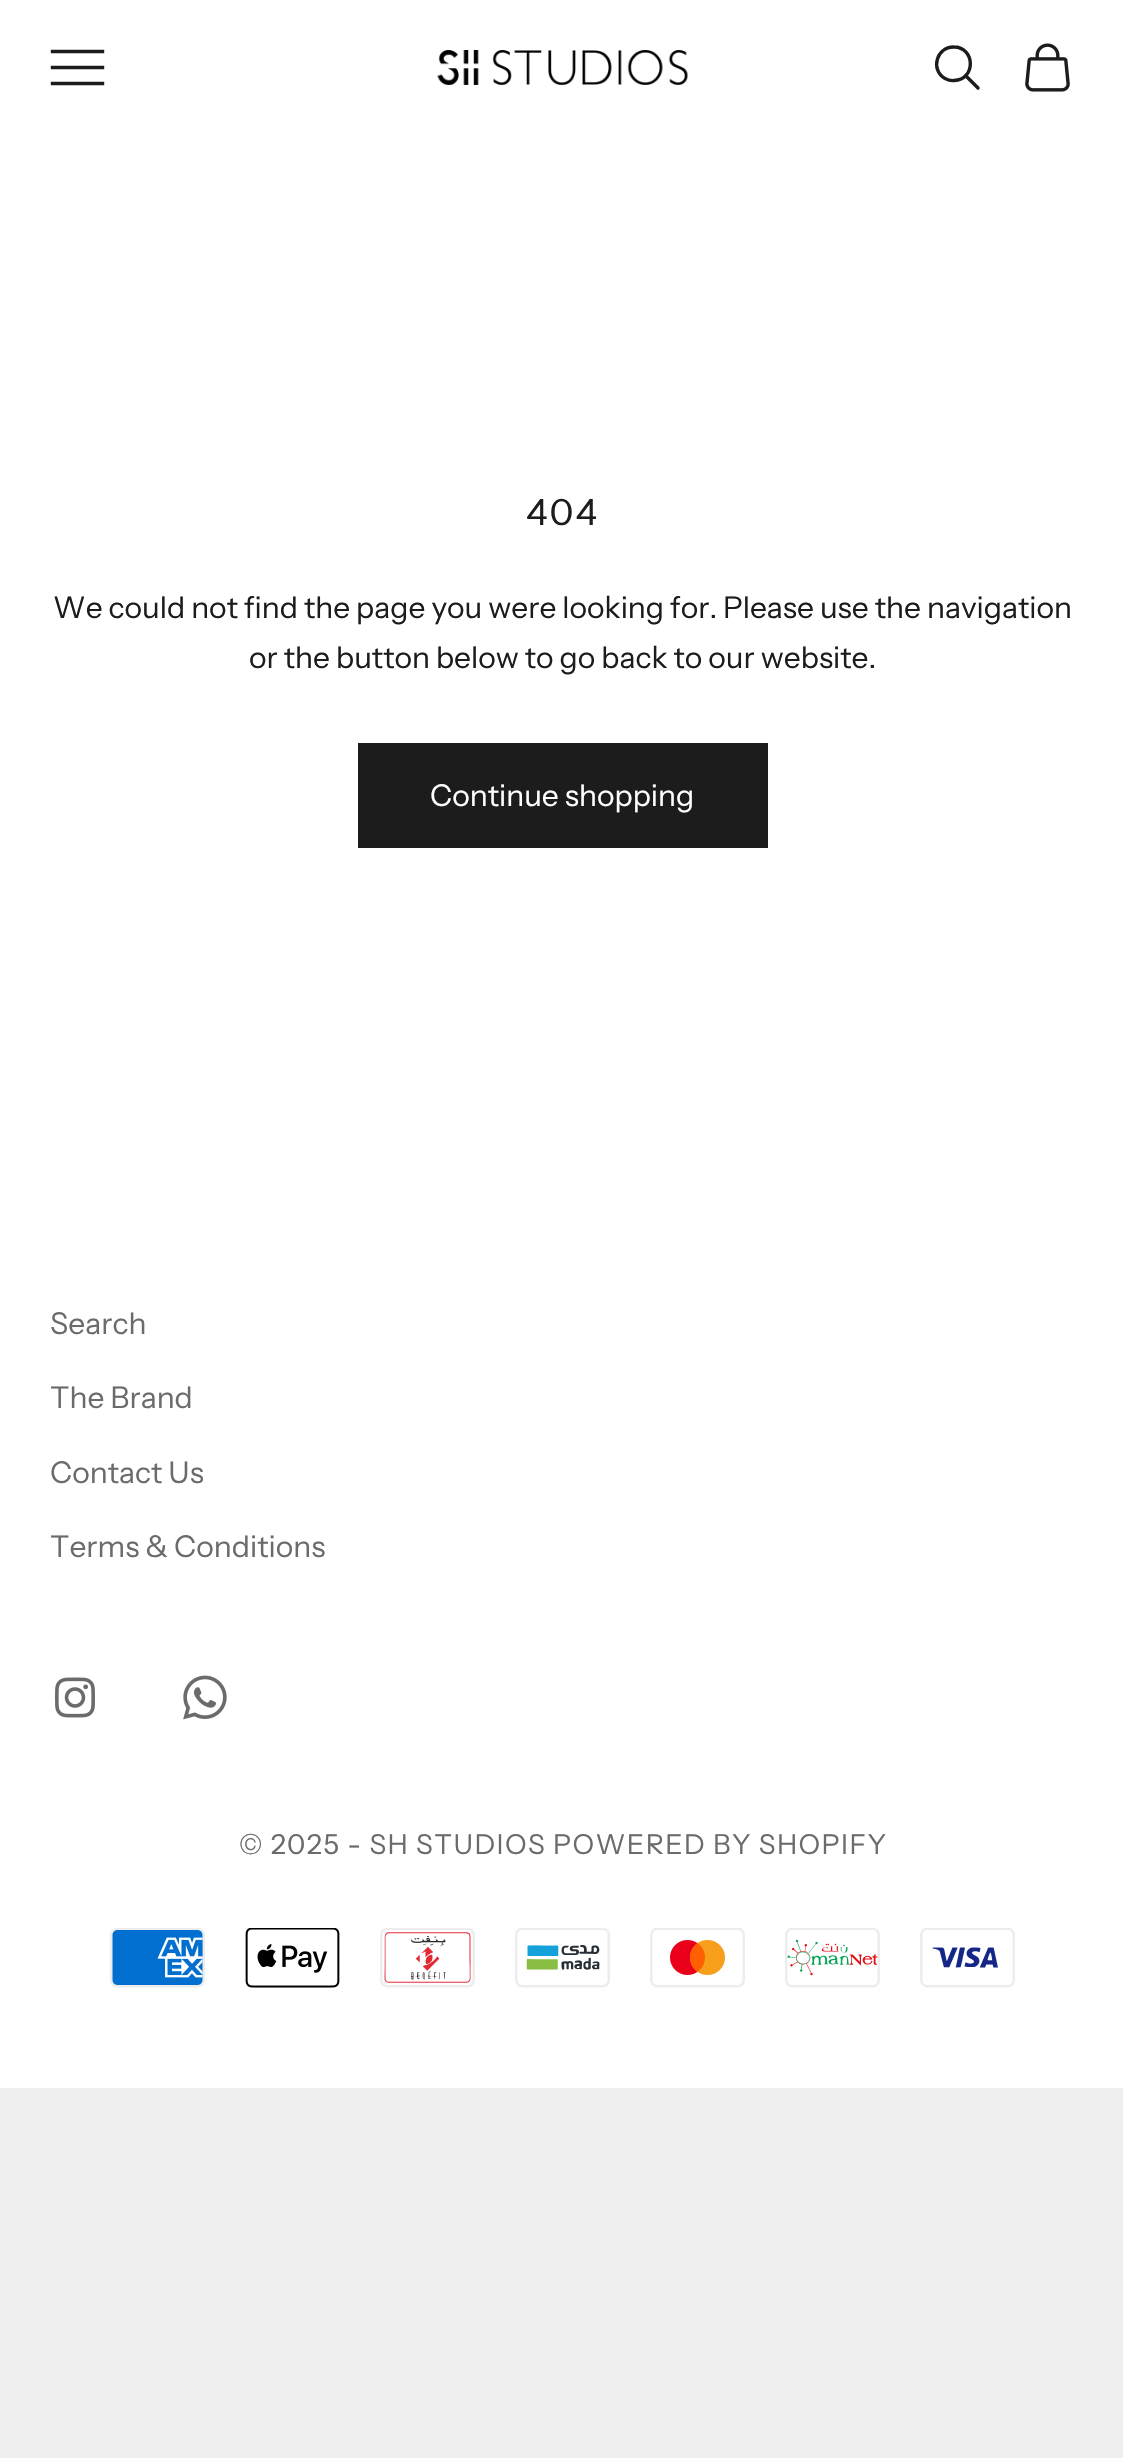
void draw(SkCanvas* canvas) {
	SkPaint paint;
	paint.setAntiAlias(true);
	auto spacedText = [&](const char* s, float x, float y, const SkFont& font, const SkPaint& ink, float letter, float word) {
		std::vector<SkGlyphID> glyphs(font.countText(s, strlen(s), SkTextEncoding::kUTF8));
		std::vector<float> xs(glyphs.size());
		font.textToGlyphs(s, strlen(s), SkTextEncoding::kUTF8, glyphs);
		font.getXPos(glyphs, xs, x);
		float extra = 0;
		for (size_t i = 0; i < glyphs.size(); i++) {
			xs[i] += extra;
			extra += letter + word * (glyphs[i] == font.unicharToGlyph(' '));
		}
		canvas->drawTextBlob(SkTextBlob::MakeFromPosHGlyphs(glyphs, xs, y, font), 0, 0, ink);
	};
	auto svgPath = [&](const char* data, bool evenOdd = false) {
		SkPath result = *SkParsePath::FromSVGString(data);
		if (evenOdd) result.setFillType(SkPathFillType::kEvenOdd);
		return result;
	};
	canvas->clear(0xffefefef);
	paint.setColor(0xffffffff);
	canvas->drawRect(SkRect::MakeXYWH(0, 0, 1123, 2088), paint);
	paint.setStroke(true);
	paint.setStrokeWidth(3.4);
	paint.setStrokeCap(SkPaint::kSquare_Cap);
	paint.setColor(0xff1c1c1c);
	canvas->drawPath(svgPath("M52.5 83.5H102.5M52.5 67.5H102.5M52.5 51.5H102.5"), paint);
	canvas->drawImageRect(SkImages::DeferredFromEncodedData(SkData::MakeFromFileName("img1.png")), SkRect::MakeXYWH(437, 50, 251, 35), SkSamplingOptions());
	paint.setStrokeCap(SkPaint::kButt_Cap);
	canvas->drawPath(svgPath("M954 47C936.5 46.5 930 70 945 78.5C948 80 951 81 954 80.5C976.5 79.5 975 47 954 47Z"), paint);
	paint.setStrokeCap(SkPaint::kRound_Cap);
	canvas->drawPath(svgPath("M966.5 76.5L978 88"), paint);
	canvas->drawImageRect(SkImages::DeferredFromEncodedData(SkData::MakeFromFileName("img2.png")), SkRect::MakeXYWH(1025, 43, 45, 49), SkSamplingOptions());
	SkFont f1(fontMgr->matchFamilyStyle("Instrument Sans", SkFontStyle::Normal()), 36);
	f1.setSubpixel(true);
	paint.setStroke(false);
	spacedText("404", 526, 525, f1, paint, 2, 0);
	SkFont f2(fontMgr->matchFamilyStyle("Instrument Sans", SkFontStyle::Normal()), 30);
	f2.setSubpixel(true);
	canvas->drawString("We could not find the page you were looking for. Please use the navigation", 53, 618, f2, paint);
	canvas->drawString("or the button below to go back to our website.", 249, 668, f2, paint);
	canvas->drawRect(SkRect::MakeXYWH(359.5, 744.5, 407, 102), paint);
	paint.setStroke(true);
	paint.setStrokeWidth(3);
	paint.setStrokeCap(SkPaint::kButt_Cap);
	canvas->drawRect(SkRect::MakeXYWH(359.5, 744.5, 407, 102), paint);
	paint.setStroke(false);
	paint.setColor(0xffffffff);
	canvas->drawString("Continue shopping", 430, 806, f2, paint);
	paint.setColor(0xff6b6b6b);
	canvas->drawString("Search", 50, 1334, f2, paint);
	canvas->drawString("The Brand", 50, 1408, f2, paint);
	canvas->drawString("Contact Us", 50, 1483, f2, paint);
	canvas->drawString("Terms & Conditions", 50, 1557, f2, paint);
	canvas->drawImageRect(SkImages::DeferredFromEncodedData(SkData::MakeFromFileName("img3.png")), SkRect::MakeXYWH(55, 1677, 40, 41), SkSamplingOptions());
	canvas->drawImageRect(SkImages::DeferredFromEncodedData(SkData::MakeFromFileName("img4.png")), SkRect::MakeXYWH(183, 1675, 44, 45), SkSamplingOptions());
	SkFont f3(fontMgr->matchFamilyStyle("Instrument Sans", SkFontStyle::Normal()), 27.5);
	f3.setSubpixel(true);
	spacedText("© 2025 - SH STUDIOS POWERED BY SHOPIFY", 239, 1854, f3, paint, 1.4, 0);
	canvas->drawImageRect(SkImages::DeferredFromEncodedData(SkData::MakeFromFileName("img5.png")), SkRect::MakeXYWH(110, 1928, 95, 60), SkSamplingOptions());
	canvas->drawImageRect(SkImages::DeferredFromEncodedData(SkData::MakeFromFileName("img6.png")), SkRect::MakeXYWH(245, 1928, 95, 60), SkSamplingOptions());
	canvas->drawImageRect(SkImages::DeferredFromEncodedData(SkData::MakeFromFileName("img7.png")), SkRect::MakeXYWH(380, 1928, 95, 60), SkSamplingOptions());
	canvas->drawImageRect(SkImages::DeferredFromEncodedData(SkData::MakeFromFileName("img8.png")), SkRect::MakeXYWH(515, 1928, 95, 60), SkSamplingOptions());
	canvas->drawImageRect(SkImages::DeferredFromEncodedData(SkData::MakeFromFileName("img9.png")), SkRect::MakeXYWH(650, 1928, 95, 60), SkSamplingOptions());
	canvas->drawImageRect(SkImages::DeferredFromEncodedData(SkData::MakeFromFileName("img10.png")), SkRect::MakeXYWH(785, 1928, 95, 60), SkSamplingOptions());
	canvas->drawImageRect(SkImages::DeferredFromEncodedData(SkData::MakeFromFileName("img11.png")), SkRect::MakeXYWH(920, 1928, 95, 60), SkSamplingOptions());
}
